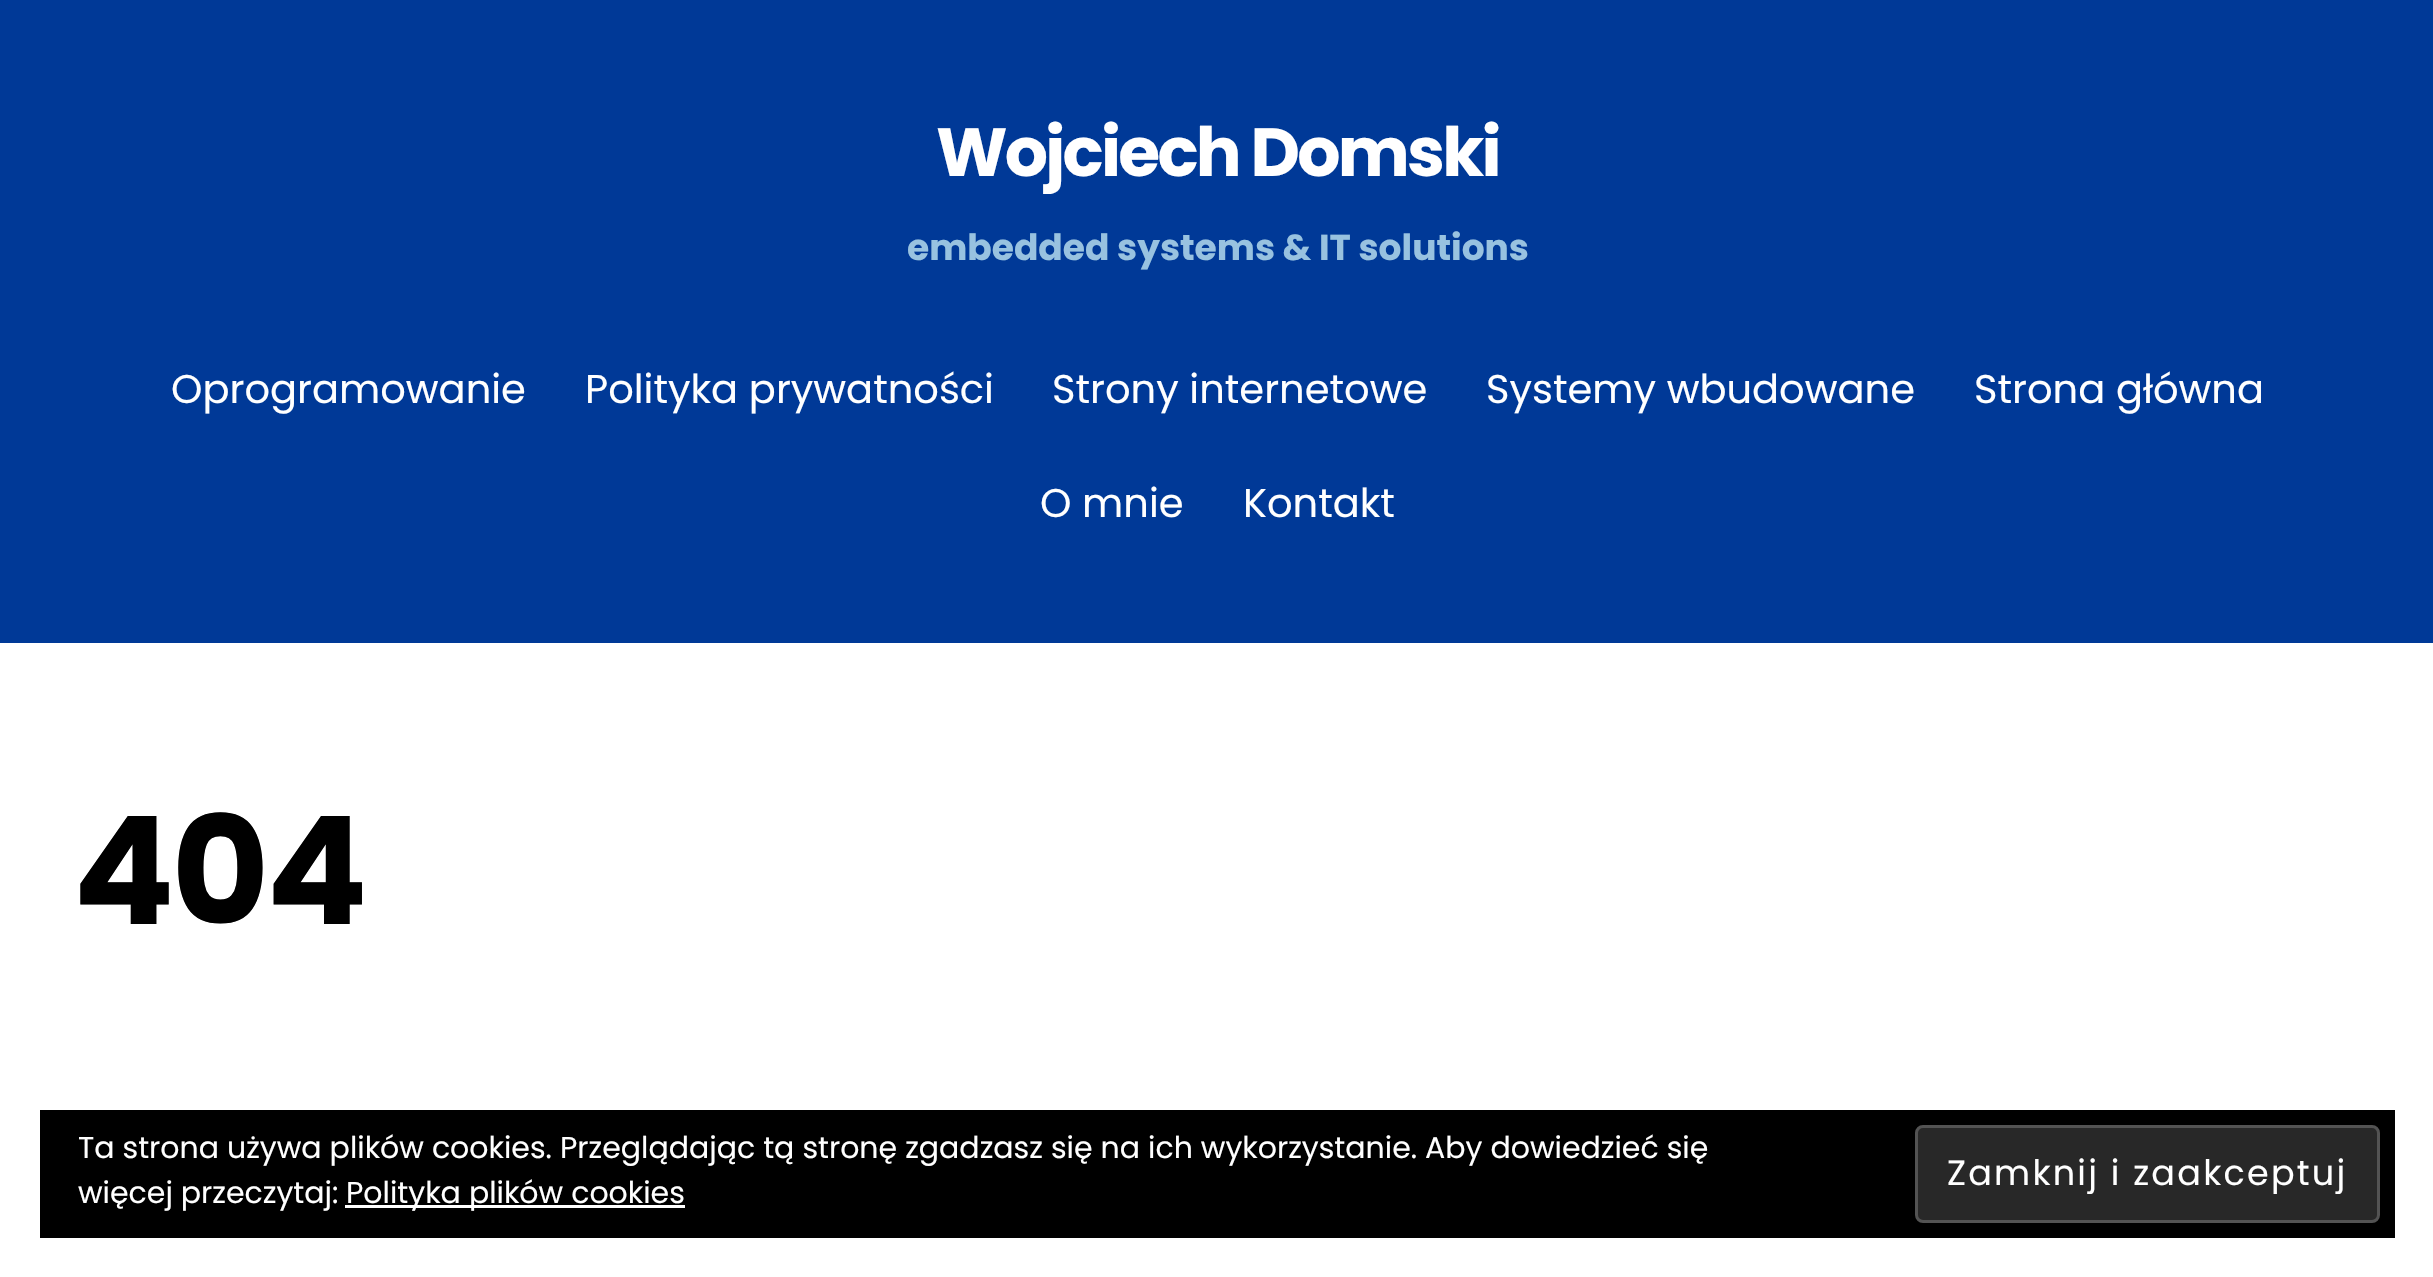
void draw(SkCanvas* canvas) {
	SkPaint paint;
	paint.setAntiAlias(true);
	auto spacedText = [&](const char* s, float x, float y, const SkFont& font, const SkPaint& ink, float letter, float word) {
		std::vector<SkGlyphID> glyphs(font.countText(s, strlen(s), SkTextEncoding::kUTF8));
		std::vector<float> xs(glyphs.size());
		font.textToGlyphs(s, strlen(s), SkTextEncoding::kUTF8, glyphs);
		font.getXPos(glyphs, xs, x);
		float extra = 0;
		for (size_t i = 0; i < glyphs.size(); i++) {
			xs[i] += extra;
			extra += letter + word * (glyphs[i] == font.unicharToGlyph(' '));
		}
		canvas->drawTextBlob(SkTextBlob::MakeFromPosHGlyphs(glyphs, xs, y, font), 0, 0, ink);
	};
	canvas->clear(0xffffffff);
	paint.setColor(0xff003997);
	canvas->drawRect(SkRect::MakeXYWH(0, 0, 2433, 643), paint);
	SkFont f1(fontMgr->matchFamilyStyle("Poppins", SkFontStyle::Bold()), 68);
	f1.setSubpixel(true);
	paint.setColor(0xffffffff);
	spacedText("Wojciech Domski", 936, 176, f1, paint, -2.75, 0);
	SkFont f2(fontMgr->matchFamilyStyle("Poppins", SkFontStyle::Bold()), 36);
	f2.setSubpixel(true);
	paint.setColor(0xff98c2e0);
	canvas->drawString("embedded systems & IT solutions", 907, 260, f2, paint);
	SkFont f3(fontMgr->matchFamilyStyle("Poppins", SkFontStyle::Normal()), 40);
	f3.setSubpixel(true);
	paint.setColor(0xffffffff);
	canvas->drawString("Oprogramowanie", 171, 403, f3, paint);
	canvas->drawString("Polityka prywatności", 585, 403, f3, paint);
	canvas->drawString("Strony internetowe", 1052, 403, f3, paint);
	canvas->drawString("Systemy wbudowane", 1486, 403, f3, paint);
	canvas->drawString("Strona główna", 1974, 403, f3, paint);
	canvas->drawString("O mnie", 1040, 517, f3, paint);
	canvas->drawString("Kontakt", 1243, 517, f3, paint);
	SkFont f4(fontMgr->matchFamilyStyle("Poppins", SkFontStyle::Bold()), 150);
	f4.setSubpixel(true);
	paint.setColor(0xff000000);
	spacedText("404", 73, 924, f4, paint, -3, 0);
	canvas->drawRect(SkRect::MakeXYWH(40, 1110, 2355, 128), paint);
	SkFont f5(fontMgr->matchFamilyStyle("Poppins", SkFontStyle::Normal()), 30);
	f5.setSubpixel(true);
	paint.setColor(0xffffffff);
	canvas->drawString("Ta strona używa plików cookies. Przeglądając tą stronę zgadzasz się na ich wykorzystanie. Aby dowiedzieć się", 78, 1158, f5, paint);
	canvas->drawString("więcej przeczytaj:", 78, 1203, f5, paint);
	canvas->drawRect(SkRect::MakeXYWH(345, 1205, 340, 3), paint);
	canvas->drawString("Polityka plików cookies", 346, 1203, f5, paint);
	paint.setColor(0xff282828);
	canvas->drawRoundRect(SkRect::MakeXYWH(1916.5, 1126.5, 462, 95), 6.5, 6.5, paint);
	paint.setStroke(true);
	paint.setStrokeWidth(3);
	paint.setColor(0xff535353);
	canvas->drawRoundRect(SkRect::MakeXYWH(1916.5, 1126.5, 462, 95), 6.5, 6.5, paint);
	SkFont f6(fontMgr->matchFamilyStyle("Poppins", SkFontStyle::Normal()), 35);
	f6.setSubpixel(true);
	paint.setStroke(false);
	paint.setColor(0xffffffff);
	spacedText("Zamknij i zaakceptuj", 1947, 1185, f6, paint, 2.25, 0);
}
